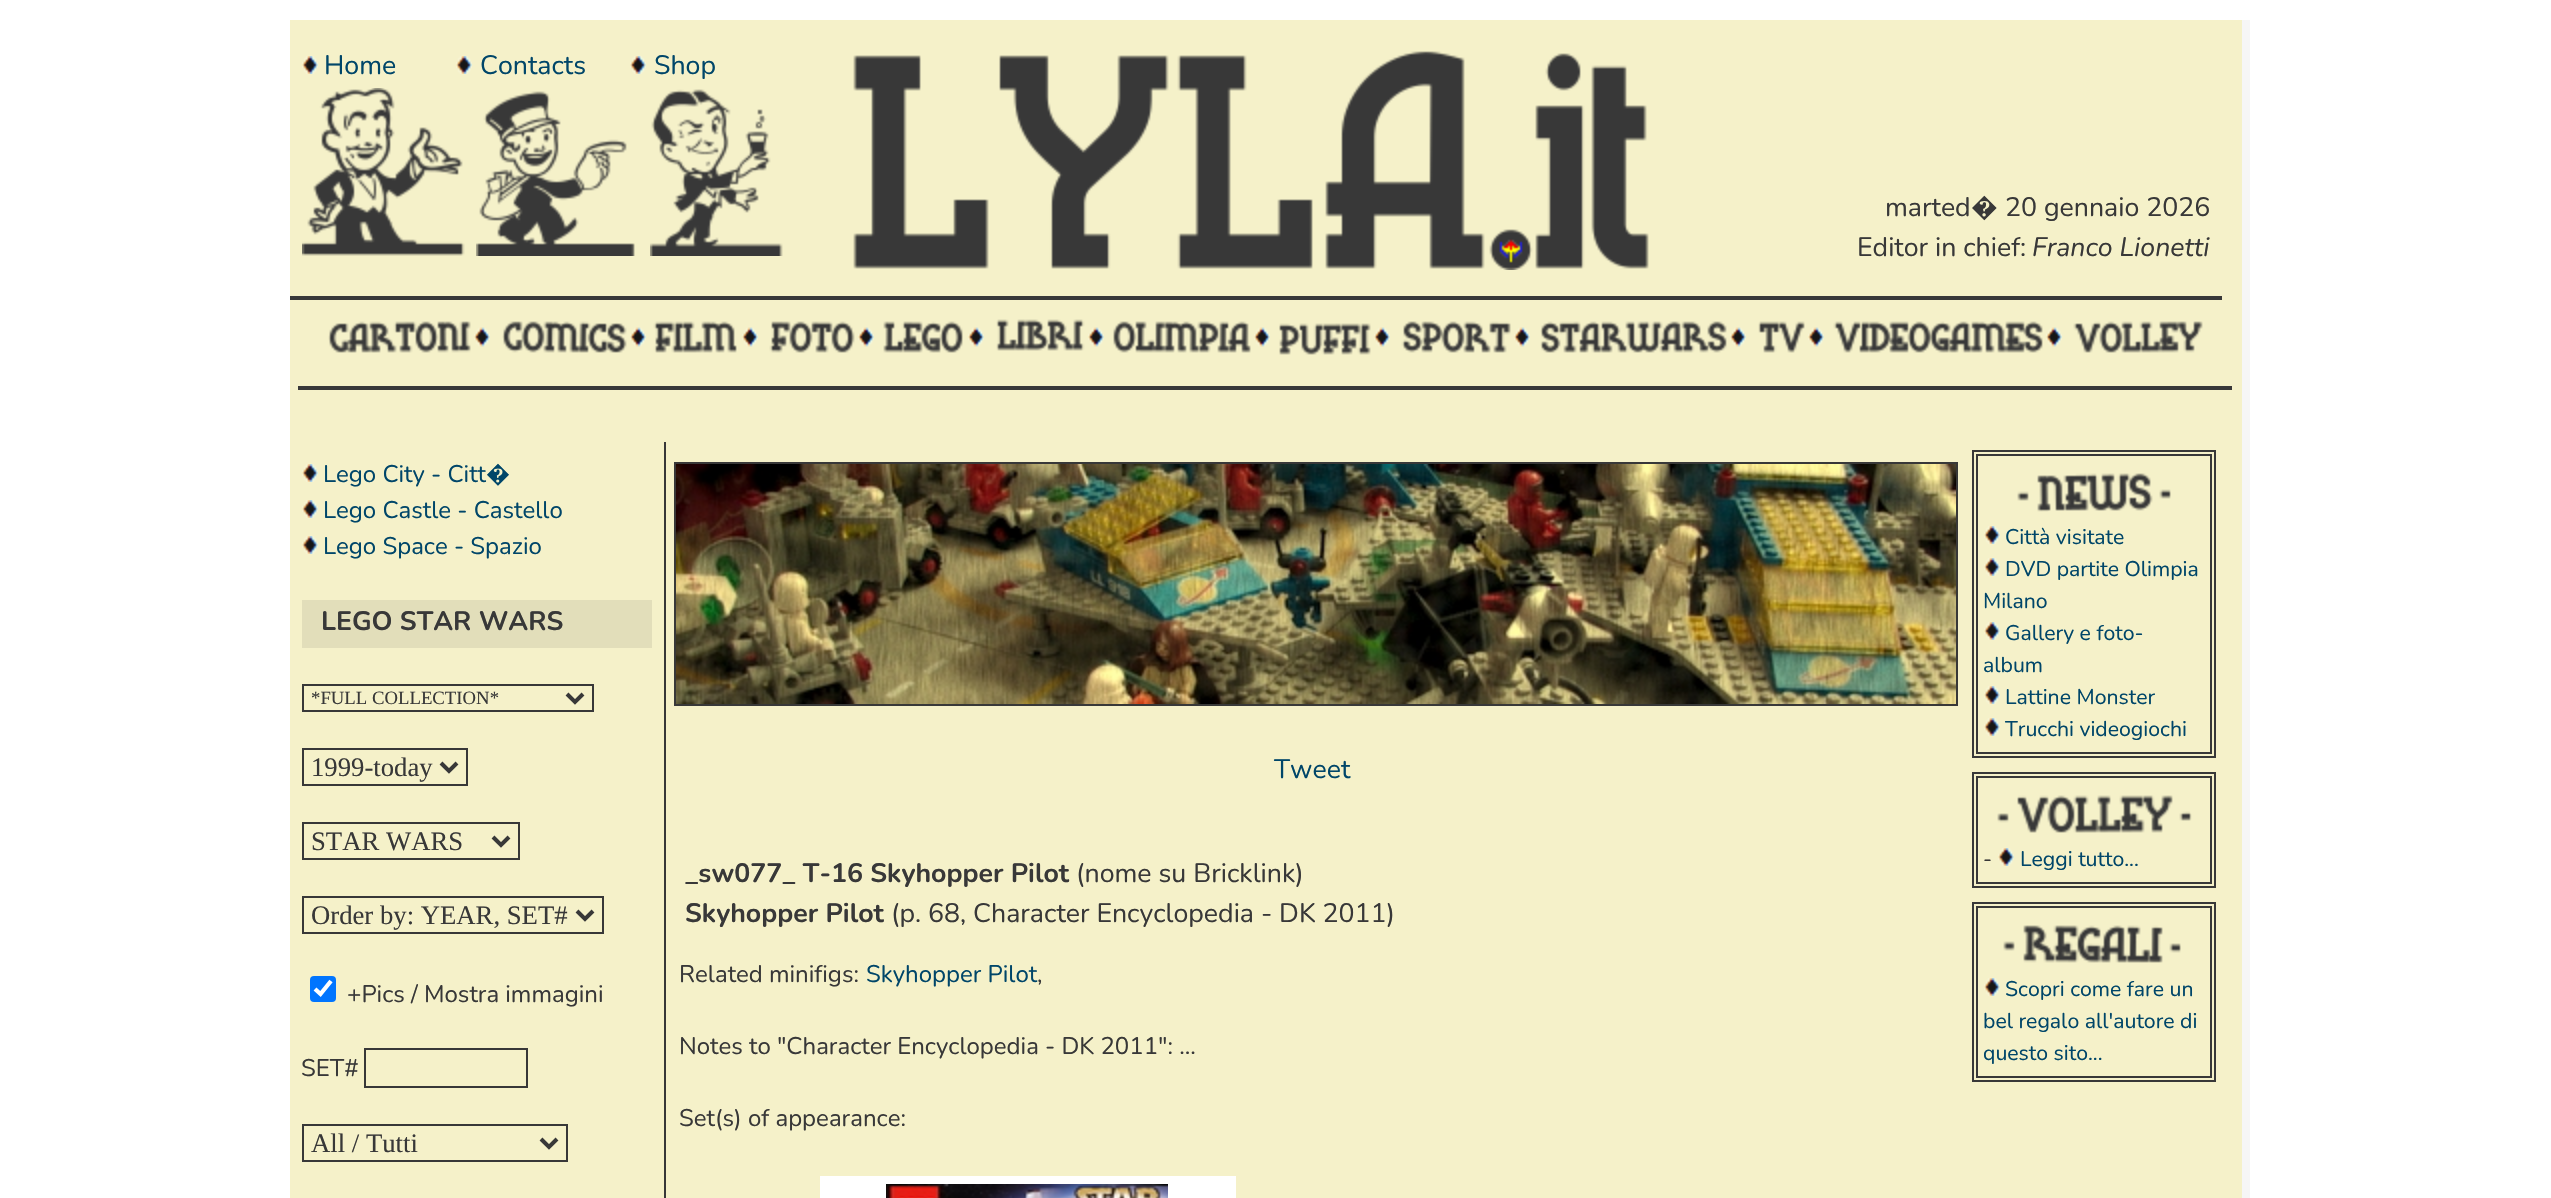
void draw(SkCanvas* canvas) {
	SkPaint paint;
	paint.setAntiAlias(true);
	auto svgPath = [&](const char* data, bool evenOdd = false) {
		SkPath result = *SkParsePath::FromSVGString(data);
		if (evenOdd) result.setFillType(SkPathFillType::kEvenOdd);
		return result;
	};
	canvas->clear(0xffffffff);
	paint.setColor(0xfff5f1c9);
	canvas->drawRect(SkRect::MakeXYWH(290, 20, 1952, 1178), paint);
	paint.setColor(0xfff6f6f6);
	canvas->drawRect(SkRect::MakeXYWH(2242, 20, 8, 1178), paint);
	paint.setColor(0xff383838);
	canvas->drawRect(SkRect::MakeXYWH(290, 296, 1932, 4), paint);
	canvas->drawImageRect(SkImages::DeferredFromEncodedData(SkData::MakeFromFileName("img1.png")), SkRect::MakeXYWH(302, 56, 16, 18), SkSamplingOptions());
	SkFont f1(fontMgr->matchFamilyStyle("Nunito", SkFontStyle::Normal()), 26.7);
	f1.setSubpixel(true);
	paint.setColor(0xff004669);
	canvas->drawString("Home", 324, 74, f1, paint);
	canvas->drawImageRect(SkImages::DeferredFromEncodedData(SkData::MakeFromFileName("img1.png")), SkRect::MakeXYWH(456, 56, 16, 18), SkSamplingOptions());
	canvas->drawString("Contacts", 480, 74, f1, paint);
	canvas->drawImageRect(SkImages::DeferredFromEncodedData(SkData::MakeFromFileName("img1.png")), SkRect::MakeXYWH(630, 56, 16, 18), SkSamplingOptions());
	canvas->drawString("Shop", 654, 74, f1, paint);
	canvas->drawImageRect(SkImages::DeferredFromEncodedData(SkData::MakeFromFileName("img2.png")), SkRect::MakeXYWH(302, 88, 163, 168), SkSamplingOptions());
	canvas->drawImageRect(SkImages::DeferredFromEncodedData(SkData::MakeFromFileName("img3.png")), SkRect::MakeXYWH(476, 91, 159, 165), SkSamplingOptions());
	canvas->drawImageRect(SkImages::DeferredFromEncodedData(SkData::MakeFromFileName("img4.png")), SkRect::MakeXYWH(650, 89, 133, 167), SkSamplingOptions());
	canvas->drawImageRect(SkImages::DeferredFromEncodedData(SkData::MakeFromFileName("img5.png")), SkRect::MakeXYWH(853, 51, 796, 219), SkSamplingOptions());
	paint.setColor(0xff383838);
	canvas->drawString("marted", 1885, 216, f1, paint);
	SkFont f2(fontMgr->matchFamilyStyle("Noto Serif", SkFontStyle::Normal()), 26.7);
	f2.setSubpixel(true);
	canvas->drawString("�", 1971, 216, f2, paint);
	canvas->drawString("20 gennaio 2026", 2005, 216, f1, paint);
	canvas->drawString("Editor in chief:", 1857, 256, f1, paint);
	SkFont f3(fontMgr->matchFamilyStyle("Nunito", SkFontStyle::Italic()), 26.7);
	f3.setSubpixel(true);
	canvas->drawString("Franco Lionetti", 2032, 256, f3, paint);
	canvas->drawRect(SkRect::MakeXYWH(298, 386, 1934, 4), paint);
	canvas->drawImageRect(SkImages::DeferredFromEncodedData(SkData::MakeFromFileName("img6.png")), SkRect::MakeXYWH(328, 321, 143, 32), SkSamplingOptions());
	canvas->drawImageRect(SkImages::DeferredFromEncodedData(SkData::MakeFromFileName("img7.png")), SkRect::MakeXYWH(474, 327, 16, 20), SkSamplingOptions());
	canvas->drawImageRect(SkImages::DeferredFromEncodedData(SkData::MakeFromFileName("img8.png")), SkRect::MakeXYWH(502, 321, 125, 32), SkSamplingOptions());
	canvas->drawImageRect(SkImages::DeferredFromEncodedData(SkData::MakeFromFileName("img7.png")), SkRect::MakeXYWH(630, 327, 16, 20), SkSamplingOptions());
	canvas->drawImageRect(SkImages::DeferredFromEncodedData(SkData::MakeFromFileName("img9.png")), SkRect::MakeXYWH(653, 321, 84, 32), SkSamplingOptions());
	canvas->drawImageRect(SkImages::DeferredFromEncodedData(SkData::MakeFromFileName("img7.png")), SkRect::MakeXYWH(742, 327, 16, 20), SkSamplingOptions());
	canvas->drawImageRect(SkImages::DeferredFromEncodedData(SkData::MakeFromFileName("img10.png")), SkRect::MakeXYWH(769, 321, 86, 32), SkSamplingOptions());
	canvas->drawImageRect(SkImages::DeferredFromEncodedData(SkData::MakeFromFileName("img7.png")), SkRect::MakeXYWH(858, 327, 16, 20), SkSamplingOptions());
	canvas->drawImageRect(SkImages::DeferredFromEncodedData(SkData::MakeFromFileName("img11.png")), SkRect::MakeXYWH(883, 321, 80, 32), SkSamplingOptions());
	canvas->drawImageRect(SkImages::DeferredFromEncodedData(SkData::MakeFromFileName("img7.png")), SkRect::MakeXYWH(968, 327, 16, 20), SkSamplingOptions());
	canvas->drawImageRect(SkImages::DeferredFromEncodedData(SkData::MakeFromFileName("img12.png")), SkRect::MakeXYWH(996, 319, 89, 32), SkSamplingOptions());
	canvas->drawImageRect(SkImages::DeferredFromEncodedData(SkData::MakeFromFileName("img7.png")), SkRect::MakeXYWH(1088, 327, 16, 20), SkSamplingOptions());
	canvas->drawImageRect(SkImages::DeferredFromEncodedData(SkData::MakeFromFileName("img13.png")), SkRect::MakeXYWH(1113, 321, 138, 32), SkSamplingOptions());
	canvas->drawImageRect(SkImages::DeferredFromEncodedData(SkData::MakeFromFileName("img7.png")), SkRect::MakeXYWH(1254, 327, 16, 20), SkSamplingOptions());
	canvas->drawImageRect(SkImages::DeferredFromEncodedData(SkData::MakeFromFileName("img14.png")), SkRect::MakeXYWH(1279, 323, 92, 32), SkSamplingOptions());
	canvas->drawImageRect(SkImages::DeferredFromEncodedData(SkData::MakeFromFileName("img7.png")), SkRect::MakeXYWH(1374, 327, 16, 20), SkSamplingOptions());
	canvas->drawImageRect(SkImages::DeferredFromEncodedData(SkData::MakeFromFileName("img15.png")), SkRect::MakeXYWH(1401, 321, 110, 32), SkSamplingOptions());
	canvas->drawImageRect(SkImages::DeferredFromEncodedData(SkData::MakeFromFileName("img7.png")), SkRect::MakeXYWH(1514, 327, 16, 20), SkSamplingOptions());
	canvas->drawImageRect(SkImages::DeferredFromEncodedData(SkData::MakeFromFileName("img16.png")), SkRect::MakeXYWH(1540, 321, 187, 32), SkSamplingOptions());
	canvas->drawImageRect(SkImages::DeferredFromEncodedData(SkData::MakeFromFileName("img7.png")), SkRect::MakeXYWH(1730, 327, 16, 20), SkSamplingOptions());
	canvas->drawImageRect(SkImages::DeferredFromEncodedData(SkData::MakeFromFileName("img17.png")), SkRect::MakeXYWH(1758, 321, 47, 32), SkSamplingOptions());
	canvas->drawImageRect(SkImages::DeferredFromEncodedData(SkData::MakeFromFileName("img7.png")), SkRect::MakeXYWH(1808, 327, 16, 20), SkSamplingOptions());
	canvas->drawImageRect(SkImages::DeferredFromEncodedData(SkData::MakeFromFileName("img18.png")), SkRect::MakeXYWH(1833, 321, 210, 32), SkSamplingOptions());
	canvas->drawImageRect(SkImages::DeferredFromEncodedData(SkData::MakeFromFileName("img7.png")), SkRect::MakeXYWH(2046, 327, 16, 20), SkSamplingOptions());
	canvas->drawImageRect(SkImages::DeferredFromEncodedData(SkData::MakeFromFileName("img19.png")), SkRect::MakeXYWH(2073, 321, 130, 32), SkSamplingOptions());
	canvas->drawImageRect(SkImages::DeferredFromEncodedData(SkData::MakeFromFileName("img1.png")), SkRect::MakeXYWH(302, 464, 16, 18), SkSamplingOptions());
	SkFont f4(fontMgr->matchFamilyStyle("Nunito", SkFontStyle::Normal()), 24);
	f4.setSubpixel(true);
	paint.setColor(0xff004669);
	canvas->drawString("Lego City - Citt", 323, 482, f4, paint);
	SkFont f5(fontMgr->matchFamilyStyle("Noto Serif", SkFontStyle::Normal()), 24);
	f5.setSubpixel(true);
	canvas->drawString("�", 486, 482, f5, paint);
	canvas->drawImageRect(SkImages::DeferredFromEncodedData(SkData::MakeFromFileName("img1.png")), SkRect::MakeXYWH(302, 500, 16, 18), SkSamplingOptions());
	canvas->drawString("Lego Castle - Castello", 323, 518, f4, paint);
	canvas->drawImageRect(SkImages::DeferredFromEncodedData(SkData::MakeFromFileName("img1.png")), SkRect::MakeXYWH(302, 536, 16, 18), SkSamplingOptions());
	canvas->drawString("Lego Space - Spazio", 323, 554, f4, paint);
	paint.setColor(0xffe2deba);
	canvas->drawRect(SkRect::MakeXYWH(302, 600, 350, 48), paint);
	SkFont f6(fontMgr->matchFamilyStyle("Nunito", SkFontStyle::Bold()), 26.7);
	f6.setSubpixel(true);
	paint.setColor(0xff383838);
	canvas->drawString("LEGO STAR WARS", 321, 630, f6, paint);
	paint.setStroke(true);
	paint.setStrokeWidth(2);
	canvas->drawRect(SkRect::MakeXYWH(303, 685, 290, 26), paint);
	paint.setStrokeWidth(4);
	canvas->drawPath(svgPath("M567 694L575 702L583 694"), paint);
	SkFont f7(fontMgr->matchFamilyStyle("Liberation Serif", SkFontStyle::Normal()), 18.75);
	f7.setSubpixel(true);
	paint.setStroke(false);
	canvas->drawString("*FULL COLLECTION*", 311, 704, f7, paint);
	paint.setStroke(true);
	paint.setStrokeWidth(2);
	canvas->drawRect(SkRect::MakeXYWH(303, 749, 164, 36), paint);
	paint.setStrokeWidth(4);
	canvas->drawPath(svgPath("M441 763L449 771L457 763"), paint);
	SkFont f8(fontMgr->matchFamilyStyle("Liberation Serif", SkFontStyle::Normal()), 26.7);
	f8.setSubpixel(true);
	paint.setStroke(false);
	canvas->drawString("1999-today", 311, 776, f8, paint);
	paint.setStroke(true);
	paint.setStrokeWidth(2);
	canvas->drawRect(SkRect::MakeXYWH(303, 823, 216, 36), paint);
	paint.setStrokeWidth(4);
	canvas->drawPath(svgPath("M493 837L501 845L509 837"), paint);
	paint.setStroke(false);
	canvas->drawString("STAR WARS", 311, 850, f8, paint);
	paint.setStroke(true);
	paint.setStrokeWidth(2);
	canvas->drawRect(SkRect::MakeXYWH(303, 897, 300, 36), paint);
	paint.setStrokeWidth(4);
	canvas->drawPath(svgPath("M577 911L585 919L593 911"), paint);
	paint.setStroke(false);
	canvas->drawString("Order by: YEAR, SET#", 311, 924, f8, paint);
	paint.setColor(0xff0075ff);
	canvas->drawRoundRect(SkRect::MakeXYWH(310, 976, 26, 26), 4, 4, paint);
	paint.setStroke(true);
	paint.setStrokeWidth(4.2);
	paint.setColor(0xffffffff);
	canvas->drawPath(svgPath("M315 989L320.5 994L331 981"), paint);
	paint.setStroke(false);
	paint.setColor(0xff383838);
	canvas->drawString("+Pics / Mostra immagini", 347, 1002, f4, paint);
	canvas->drawString("SET#", 301, 1076, f4, paint);
	paint.setStroke(true);
	paint.setStrokeWidth(2);
	canvas->drawRect(SkRect::MakeXYWH(365, 1049, 162, 38), paint);
	canvas->drawRect(SkRect::MakeXYWH(303, 1125, 264, 36), paint);
	paint.setStrokeWidth(4);
	canvas->drawPath(svgPath("M541 1139L549 1147L557 1139"), paint);
	paint.setStroke(false);
	canvas->drawString("All / Tutti", 311, 1152, f8, paint);
	canvas->drawRect(SkRect::MakeXYWH(664, 442, 2, 756), paint);
	paint.setStroke(true);
	paint.setStrokeWidth(2);
	canvas->drawRect(SkRect::MakeXYWH(675, 463, 1282, 242), paint);
	canvas->drawImageRect(SkImages::DeferredFromEncodedData(SkData::MakeFromFileName("img20.png")), SkRect::MakeXYWH(676, 464, 1280, 240), SkSamplingOptions());
	paint.setStroke(false);
	paint.setColor(0xff004669);
	canvas->drawString("Tweet", 1274, 778, f1, paint);
	paint.setColor(0xff383838);
	canvas->drawString("_sw077_ T-16 Skyhopper Pilot", 685, 882, f6, paint);
	canvas->drawString("(nome su Bricklink)", 1076, 882, f1, paint);
	canvas->drawString("Skyhopper Pilot", 685, 922, f6, paint);
	canvas->drawString("(p. 68, Character Encyclopedia - DK 2011)", 891, 922, f1, paint);
	canvas->drawString("Related minifigs:", 679, 982, f4, paint);
	paint.setColor(0xff004669);
	canvas->drawString("Skyhopper Pilot", 866, 982, f4, paint);
	paint.setColor(0xff383838);
	canvas->drawString(",", 1037, 982, f4, paint);
	canvas->drawString("Notes to \"Character Encyclopedia - DK 2011\":", 679, 1054, f4, paint);
	SkFont f9(fontMgr->matchFamilyStyle("Nunito", SkFontStyle::Italic()), 24);
	f9.setSubpixel(true);
	canvas->drawString("...", 1180, 1054, f9, paint);
	canvas->drawString("Set(s) of appearance:", 679, 1126, f4, paint);
	paint.setColor(0xffffffff);
	canvas->drawRect(SkRect::MakeXYWH(820, 1176, 416, 22), paint);
	canvas->drawImageRect(SkImages::DeferredFromEncodedData(SkData::MakeFromFileName("img21.png")), SkRect::MakeXYWH(886, 1184, 282, 14), SkSamplingOptions());
	paint.setStroke(true);
	paint.setColor(0xff383838);
	canvas->drawRect(SkRect::MakeXYWH(1973, 451, 242, 306), paint);
	canvas->drawRect(SkRect::MakeXYWH(1977, 455, 234, 298), paint);
	canvas->drawImageRect(SkImages::DeferredFromEncodedData(SkData::MakeFromFileName("img22.png")), SkRect::MakeXYWH(2017, 473, 154, 39), SkSamplingOptions());
	canvas->drawImageRect(SkImages::DeferredFromEncodedData(SkData::MakeFromFileName("img1.png")), SkRect::MakeXYWH(1984, 526, 16, 18), SkSamplingOptions());
	SkFont f10(fontMgr->matchFamilyStyle("Nunito", SkFontStyle::Normal()), 21.25);
	f10.setSubpixel(true);
	paint.setStroke(false);
	paint.setColor(0xff004669);
	canvas->drawString("Città visitate", 2005, 544, f10, paint);
	canvas->drawImageRect(SkImages::DeferredFromEncodedData(SkData::MakeFromFileName("img1.png")), SkRect::MakeXYWH(1984, 558, 16, 18), SkSamplingOptions());
	canvas->drawString("DVD partite Olimpia", 2005, 576, f10, paint);
	canvas->drawString("Milano", 1983, 608, f10, paint);
	canvas->drawImageRect(SkImages::DeferredFromEncodedData(SkData::MakeFromFileName("img1.png")), SkRect::MakeXYWH(1984, 622, 16, 18), SkSamplingOptions());
	canvas->drawString("Gallery e foto-", 2005, 640, f10, paint);
	canvas->drawString("album", 1983, 672, f10, paint);
	canvas->drawImageRect(SkImages::DeferredFromEncodedData(SkData::MakeFromFileName("img1.png")), SkRect::MakeXYWH(1984, 686, 16, 18), SkSamplingOptions());
	canvas->drawString("Lattine Monster", 2005, 704, f10, paint);
	canvas->drawImageRect(SkImages::DeferredFromEncodedData(SkData::MakeFromFileName("img1.png")), SkRect::MakeXYWH(1984, 718, 16, 18), SkSamplingOptions());
	canvas->drawString("Trucchi videogiochi", 2005, 736, f10, paint);
	paint.setStroke(true);
	paint.setColor(0xff383838);
	canvas->drawRect(SkRect::MakeXYWH(1973, 773, 242, 114), paint);
	canvas->drawRect(SkRect::MakeXYWH(1977, 777, 234, 106), paint);
	canvas->drawImageRect(SkImages::DeferredFromEncodedData(SkData::MakeFromFileName("img23.png")), SkRect::MakeXYWH(1997, 795, 195, 38), SkSamplingOptions());
	paint.setStroke(false);
	canvas->drawString("-", 1983, 866, f10, paint);
	canvas->drawImageRect(SkImages::DeferredFromEncodedData(SkData::MakeFromFileName("img1.png")), SkRect::MakeXYWH(1998, 848, 16, 18), SkSamplingOptions());
	paint.setColor(0xff004669);
	canvas->drawString("Leggi tutto...", 2020, 866, f10, paint);
	paint.setStroke(true);
	paint.setColor(0xff383838);
	canvas->drawRect(SkRect::MakeXYWH(1973, 903, 242, 178), paint);
	canvas->drawRect(SkRect::MakeXYWH(1977, 907, 234, 170), paint);
	canvas->drawImageRect(SkImages::DeferredFromEncodedData(SkData::MakeFromFileName("img24.png")), SkRect::MakeXYWH(2003, 925, 178, 38), SkSamplingOptions());
	canvas->drawImageRect(SkImages::DeferredFromEncodedData(SkData::MakeFromFileName("img1.png")), SkRect::MakeXYWH(1984, 978, 16, 18), SkSamplingOptions());
	paint.setStroke(false);
	paint.setColor(0xff004669);
	canvas->drawString("Scopri come fare un", 2005, 996, f10, paint);
	canvas->drawString("bel regalo all'autore di", 1983, 1028, f10, paint);
	canvas->drawString("questo sito...", 1983, 1060, f10, paint);
}
